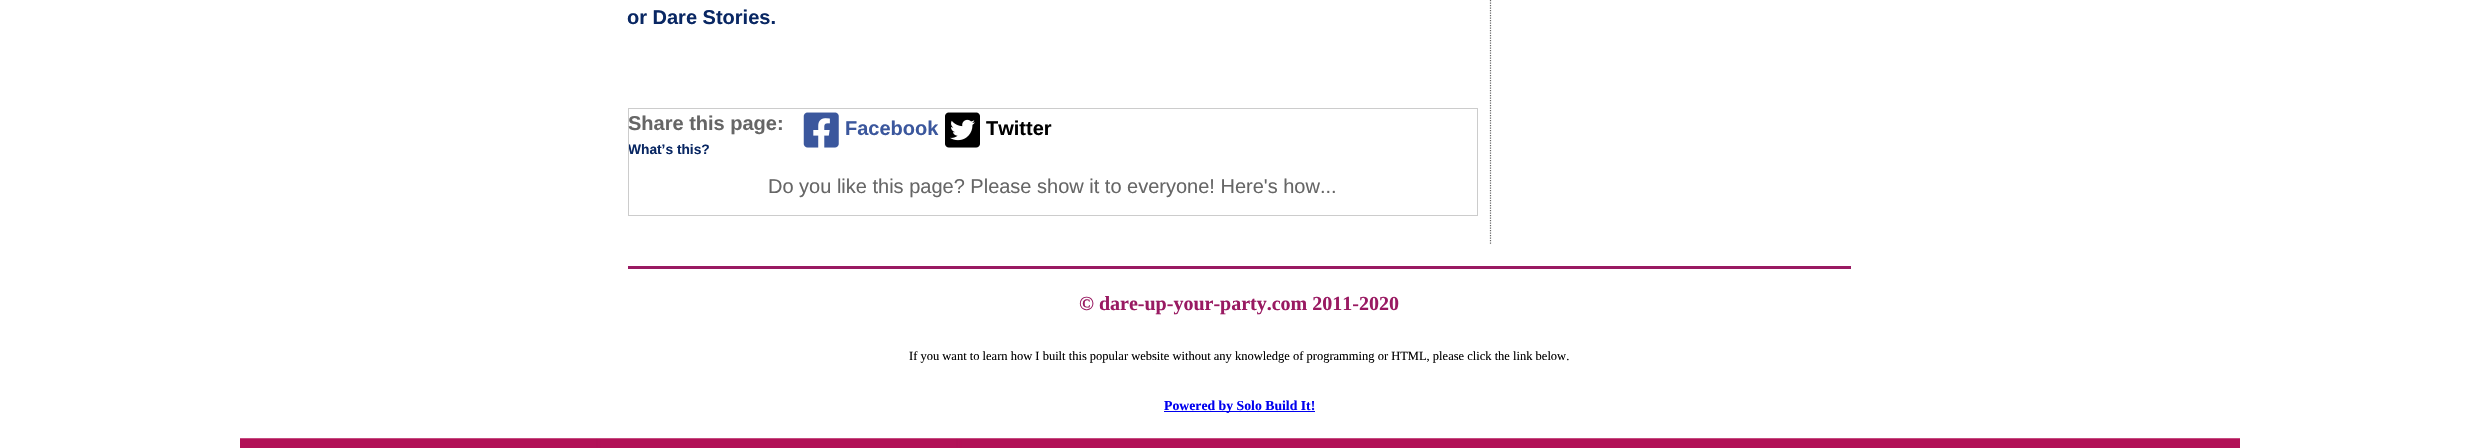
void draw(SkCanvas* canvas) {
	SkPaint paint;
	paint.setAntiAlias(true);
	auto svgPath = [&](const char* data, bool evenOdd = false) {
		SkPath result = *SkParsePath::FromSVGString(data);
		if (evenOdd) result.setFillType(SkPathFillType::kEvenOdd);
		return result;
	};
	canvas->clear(0xffffffff);
	canvas->drawImageRect(SkImages::DeferredFromEncodedData(SkData::MakeFromFileName("img1.png")), SkRect::MakeXYWH(240, 438, 2000, 10), SkSamplingOptions());
	paint.setStroke(true);
	paint.setStrokeWidth(1.2);
	paint.setColor(0xff666666);
	paint.setPathEffect(SkDashPathEffect::Make({{1.25f, 1.25f}}, 0));
	canvas->drawPath(svgPath("M1490.5-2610V244"), paint);
	paint.setPathEffect(nullptr);
	SkFont f1(fontMgr->matchFamilyStyle("Liberation Sans", SkFontStyle::Bold()), 20);
	f1.setSubpixel(true);
	paint.setStroke(false);
	paint.setColor(0xff092763);
	canvas->drawString("or Dare Stories.", 627, 24, f1, paint);
	paint.setStroke(true);
	paint.setStrokeWidth(1);
	paint.setColor(0xffcccccc);
	canvas->drawRect(SkRect::MakeXYWH(628.5, 108.5, 849, 107), paint);
	paint.setStroke(false);
	paint.setColor(0xff666666);
	canvas->drawString("Share this page:", 628, 130, f1, paint);
	canvas->save();
	canvas->clipRect(SkRect::MakeXYWH(629, 109, 847, 51));
	SkFont f2(fontMgr->matchFamilyStyle("Liberation Sans", SkFontStyle::Bold()), 13.75);
	f2.setSubpixel(true);
	paint.setColor(0xff092763);
	canvas->drawString("What’s this?", 628, 154, f2, paint);
	canvas->restore();
	canvas->drawImageRect(SkImages::DeferredFromEncodedData(SkData::MakeFromFileName("img2.png")), SkRect::MakeXYWH(803, 112, 36, 36), SkSamplingOptions());
	paint.setColor(0xff3b579d);
	canvas->drawString("Facebook", 845, 135, f1, paint);
	canvas->drawImageRect(SkImages::DeferredFromEncodedData(SkData::MakeFromFileName("img3.png")), SkRect::MakeXYWH(945, 112, 35, 36), SkSamplingOptions());
	paint.setColor(0xff000000);
	canvas->drawString("Twitter", 986, 135, f1, paint);
	SkFont f3(fontMgr->matchFamilyStyle("Liberation Sans", SkFontStyle::Normal()), 20);
	f3.setSubpixel(true);
	paint.setColor(0xff666666);
	canvas->drawString("Do you like this page? Please show it to everyone! Here's how...", 768, 193, f3, paint);
	paint.setColor(0xff991a62);
	canvas->drawRect(SkRect::MakeXYWH(628, 266, 1223, 3), paint);
	SkFont f4(fontMgr->matchFamilyStyle("Liberation Serif", SkFontStyle::Bold()), 20);
	f4.setSubpixel(true);
	canvas->drawString("© dare-up-your-party.com 2011-2020", 1079, 310, f4, paint);
	SkFont f5(fontMgr->matchFamilyStyle("Liberation Serif", SkFontStyle::Normal()), 12.5);
	f5.setSubpixel(true);
	paint.setColor(0xff000000);
	canvas->drawString("If you want to learn how I built this popular website without any knowledge of programming or HTML, please click the link below.", 909, 360, f5, paint);
	paint.setColor(0xff0000ee);
	canvas->drawRect(SkRect::MakeXYWH(1164, 411, 151, 1), paint);
	SkFont f6(fontMgr->matchFamilyStyle("Liberation Serif", SkFontStyle::Bold()), 13.75);
	f6.setSubpixel(true);
	canvas->drawString("Powered by Solo Build It!", 1164, 410, f6, paint);
}
